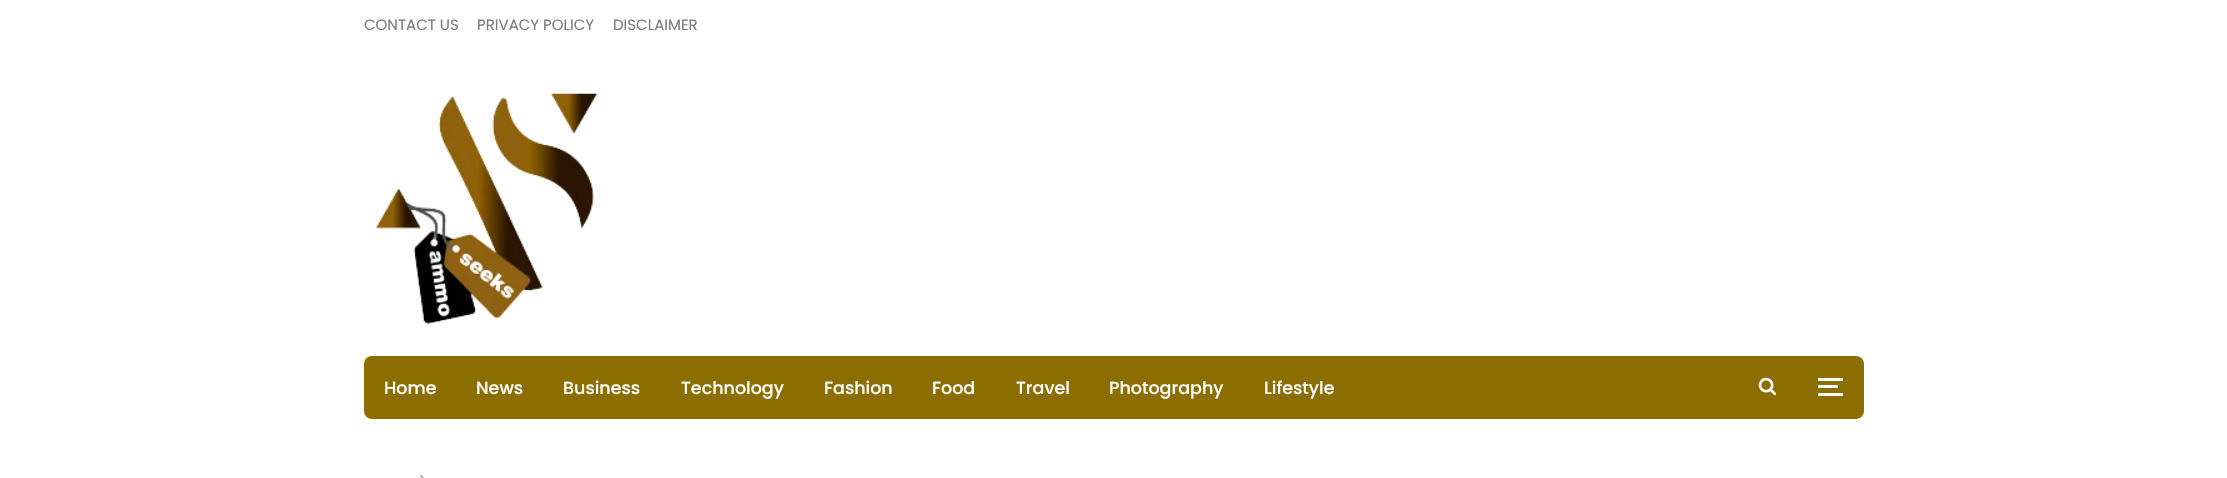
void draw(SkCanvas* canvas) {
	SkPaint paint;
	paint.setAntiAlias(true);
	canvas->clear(0xffffffff);
	SkFont f1(fontMgr->matchFamilyStyle("Poppins", SkFontStyle::Normal()), 15);
	f1.setSubpixel(true);
	paint.setColor(0xff7b7b7b);
	canvas->drawString("CONTACT US", 364, 30, f1, paint);
	canvas->drawString("PRIVACY POLICY", 477, 30, f1, paint);
	canvas->drawString("DISCLAIMER", 613, 30, f1, paint);
	canvas->drawImageRect(SkImages::DeferredFromEncodedData(SkData::MakeFromFileName("img1.png")), SkRect::MakeXYWH(376, 93, 222, 231), SkSamplingOptions());
	paint.setColor(0xff8c6d00);
	canvas->drawRoundRect(SkRect::MakeXYWH(364, 356, 1500, 63), 8, 8, paint);
	SkFont f2(fontMgr->matchFamilyStyle("Poppins", SkFontStyle(500, SkFontStyle::kNormal_Width, SkFontStyle::kUpright_Slant)), 17.5);
	f2.setSubpixel(true);
	paint.setColor(0xffffffff);
	canvas->drawString("Home", 384, 394, f2, paint);
	canvas->drawString("News", 476, 394, f2, paint);
	canvas->drawString("Business", 563, 394, f2, paint);
	canvas->drawString("Technology", 681, 394, f2, paint);
	canvas->drawString("Fashion", 824, 394, f2, paint);
	canvas->drawString("Food", 932, 394, f2, paint);
	canvas->drawString("Travel", 1016, 394, f2, paint);
	canvas->drawString("Photography", 1109, 394, f2, paint);
	canvas->drawString("Lifestyle", 1264, 394, f2, paint);
	canvas->drawImageRect(SkImages::DeferredFromEncodedData(SkData::MakeFromFileName("img2.png")), SkRect::MakeXYWH(1758, 377, 19, 19), SkSamplingOptions());
	canvas->drawRect(SkRect::MakeXYWH(1818, 385, 20, 3), paint);
	canvas->drawRect(SkRect::MakeXYWH(1818, 378, 25, 3), paint);
	canvas->drawRect(SkRect::MakeXYWH(1818, 393, 25, 3), paint);
	canvas->drawImageRect(SkImages::DeferredFromEncodedData(SkData::MakeFromFileName("img3.png")), SkRect::MakeXYWH(420, 474, 4, 4), SkSamplingOptions());
}
